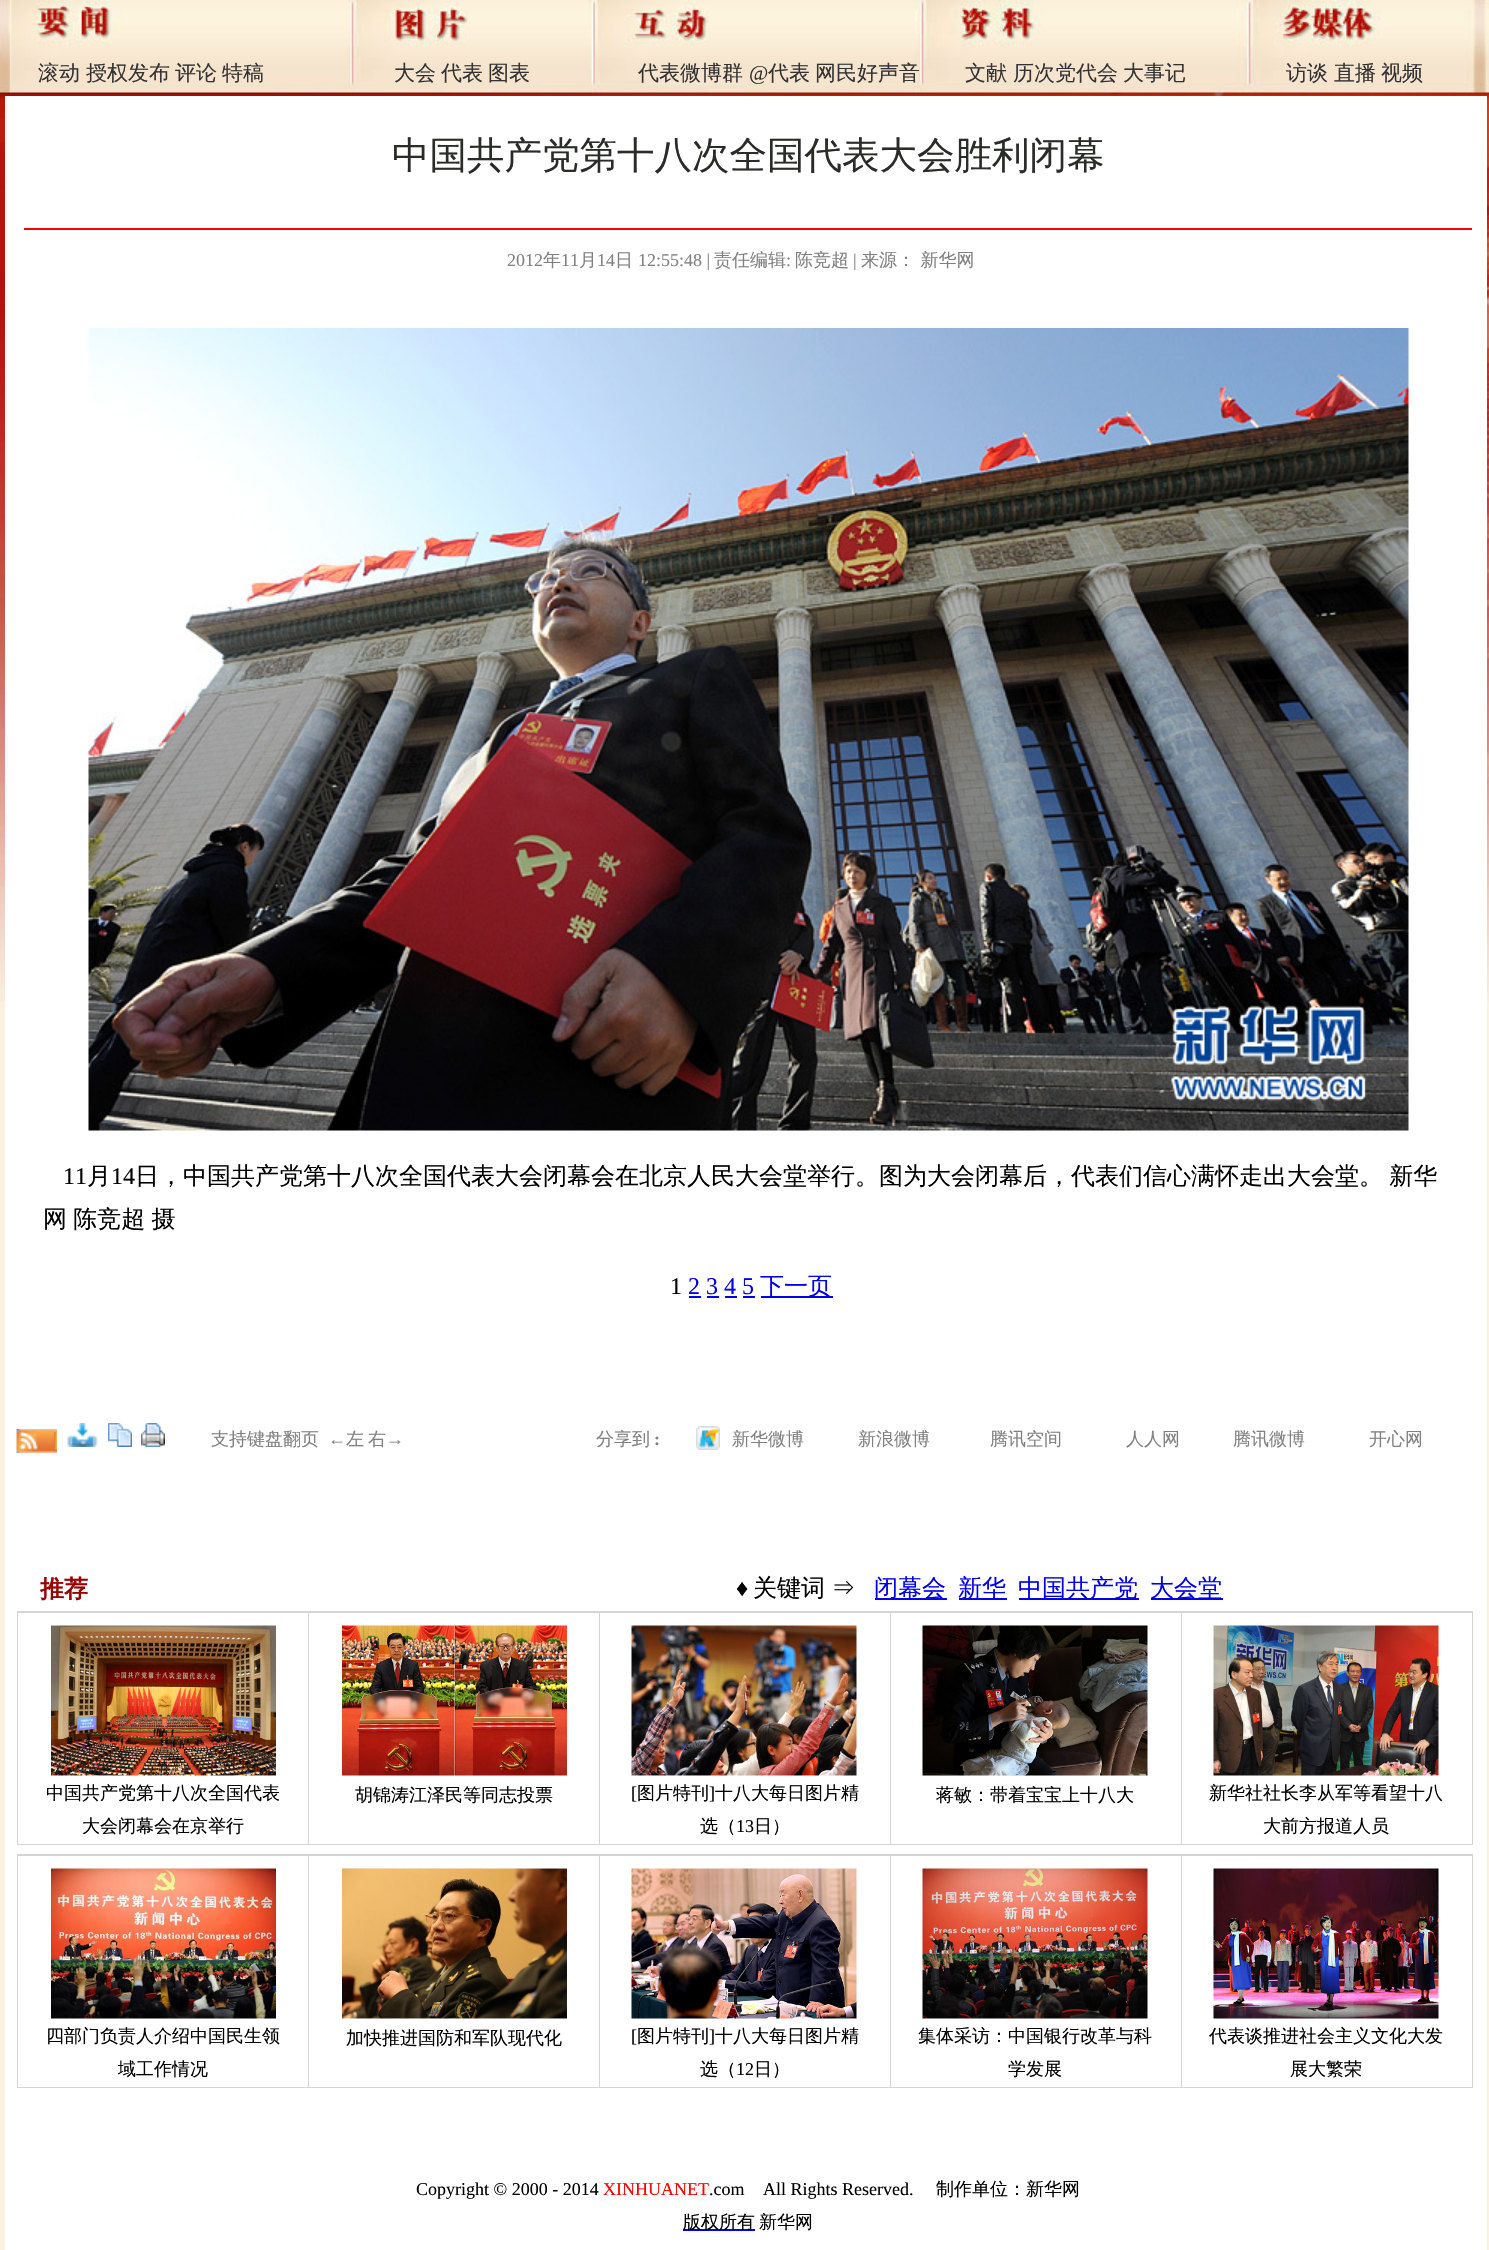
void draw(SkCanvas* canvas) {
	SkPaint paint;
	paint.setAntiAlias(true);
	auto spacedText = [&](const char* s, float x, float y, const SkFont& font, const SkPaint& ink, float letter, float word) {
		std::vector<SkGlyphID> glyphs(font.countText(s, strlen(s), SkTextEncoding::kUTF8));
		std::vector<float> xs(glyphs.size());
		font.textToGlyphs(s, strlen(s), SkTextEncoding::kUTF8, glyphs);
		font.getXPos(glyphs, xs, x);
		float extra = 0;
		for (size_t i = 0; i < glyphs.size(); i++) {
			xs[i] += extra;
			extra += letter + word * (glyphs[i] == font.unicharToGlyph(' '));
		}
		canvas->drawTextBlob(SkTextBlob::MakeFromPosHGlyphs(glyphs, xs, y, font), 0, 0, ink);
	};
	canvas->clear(0xfffaf1e1);
	canvas->drawImageRect(SkImages::DeferredFromEncodedData(SkData::MakeFromFileName("img1.png")), SkRect::MakeXYWH(0, 0, 1489, 1002), SkSamplingOptions());
	SkFont f1(fontMgr->matchFamilyStyle("WenQuanYi Zen Hei", SkFontStyle(500, SkFontStyle::kNormal_Width, SkFontStyle::kUpright_Slant)), 21);
	f1.setSubpixel(true);
	paint.setColor(0xff333333);
	canvas->drawString("滚动", 38, 80, f1, paint);
	canvas->drawString("授权发布", 86, 80, f1, paint);
	canvas->drawString("评论", 175, 80, f1, paint);
	canvas->drawString("特稿", 222, 80, f1, paint);
	canvas->drawString("大会", 394, 80, f1, paint);
	canvas->drawString("代表", 441, 80, f1, paint);
	canvas->drawString("图表", 488, 80, f1, paint);
	canvas->drawString("代表微博群", 638, 80, f1, paint);
	SkFont f2(fontMgr->matchFamilyStyle("Liberation Serif", SkFontStyle::Normal()), 21);
	f2.setSubpixel(true);
	canvas->drawString("@", 749, 80, f2, paint);
	canvas->drawString("代表", 768, 80, f1, paint);
	canvas->drawString("网民好声音", 815, 80, f1, paint);
	canvas->drawString("文献", 965, 80, f1, paint);
	canvas->drawString("历次党代会", 1013, 80, f1, paint);
	canvas->drawString("大事记", 1123, 80, f1, paint);
	canvas->drawString("访谈", 1286, 80, f1, paint);
	canvas->drawString("直播", 1334, 80, f1, paint);
	canvas->drawString("视频", 1381, 80, f1, paint);
	paint.setColor(0xffffffff);
	canvas->drawRect(SkRect::MakeXYWH(5, 96, 1482, 2154), paint);
	SkFont f3(fontMgr->matchFamilyStyle("WenQuanYi Zen Hei", SkFontStyle(500, SkFontStyle::kNormal_Width, SkFontStyle::kUpright_Slant)), 37.5);
	f3.setSubpixel(true);
	paint.setColor(0xff2a2c29);
	canvas->drawString("中国共产党第十八次全国代表大会胜利闭幕", 392, 168, f3, paint);
	paint.setColor(0xffff0000);
	canvas->drawRect(SkRect::MakeXYWH(24, 228, 1448, 2), paint);
	SkFont f4(fontMgr->matchFamilyStyle("Liberation Serif", SkFontStyle::Normal()), 18);
	f4.setSubpixel(true);
	paint.setColor(0xff818181);
	canvas->drawString("2012", 507, 266, f4, paint);
	SkFont f5(fontMgr->matchFamilyStyle("WenQuanYi Zen Hei", SkFontStyle(500, SkFontStyle::kNormal_Width, SkFontStyle::kUpright_Slant)), 18);
	f5.setSubpixel(true);
	canvas->drawString("年", 543, 266, f5, paint);
	canvas->drawString("11", 561, 266, f4, paint);
	canvas->drawString("月", 579, 266, f5, paint);
	canvas->drawString("14", 597, 266, f4, paint);
	canvas->drawString("日", 615, 266, f5, paint);
	canvas->drawString("12:55:48 |", 638, 266, f4, paint);
	canvas->drawString("责任编辑", 714, 266, f5, paint);
	canvas->drawString(":", 786, 266, f4, paint);
	canvas->drawString("陈竞超", 795, 266, f5, paint);
	canvas->drawString("|", 853, 266, f4, paint);
	canvas->drawString("来源： 新华网", 861, 266, f5, paint);
	canvas->drawImageRect(SkImages::DeferredFromEncodedData(SkData::MakeFromFileName("img2.png")), SkRect::MakeXYWH(88, 328, 1321, 803), SkSamplingOptions());
	SkFont f6(fontMgr->matchFamilyStyle("Liberation Serif", SkFontStyle::Normal()), 24);
	f6.setSubpixel(true);
	paint.setColor(0xff000000);
	canvas->drawString("11", 63, 1184, f6, paint);
	SkFont f7(fontMgr->matchFamilyStyle("WenQuanYi Zen Hei", SkFontStyle(500, SkFontStyle::kNormal_Width, SkFontStyle::kUpright_Slant)), 24);
	f7.setSubpixel(true);
	canvas->drawString("月", 87, 1184, f7, paint);
	canvas->drawString("14", 111, 1184, f6, paint);
	spacedText("日，中国共产党第十八次全国代表大会闭幕会在北京人民大会堂举行。图为大会闭幕后，代表们信心满怀走出大会堂。 新华", 135, 1184, f7, paint, 0, -1);
	spacedText("网 陈竞超 摄", 43, 1227, f7, paint, 0, -1);
	canvas->drawString("1", 670, 1294, f6, paint);
	paint.setColor(0xff0000ee);
	canvas->drawString("2 3 4 5", 688, 1294, f6, paint);
	canvas->drawRect(SkRect::MakeXYWH(689, 1296, 12, 2), paint);
	canvas->drawRect(SkRect::MakeXYWH(761, 1296, 72, 2), paint);
	canvas->drawString("下一页", 760, 1294, f7, paint);
	canvas->drawRect(SkRect::MakeXYWH(707, 1296, 12, 2), paint);
	canvas->drawRect(SkRect::MakeXYWH(725, 1296, 12, 2), paint);
	canvas->drawRect(SkRect::MakeXYWH(743, 1296, 12, 2), paint);
	canvas->drawImageRect(SkImages::DeferredFromEncodedData(SkData::MakeFromFileName("img3.png")), SkRect::MakeXYWH(16, 1429, 41, 24), SkSamplingOptions());
	canvas->drawImageRect(SkImages::DeferredFromEncodedData(SkData::MakeFromFileName("img4.png")), SkRect::MakeXYWH(67, 1423, 31, 24), SkSamplingOptions());
	canvas->drawImageRect(SkImages::DeferredFromEncodedData(SkData::MakeFromFileName("img5.png")), SkRect::MakeXYWH(108, 1423, 24, 24), SkSamplingOptions());
	canvas->drawImageRect(SkImages::DeferredFromEncodedData(SkData::MakeFromFileName("img6.png")), SkRect::MakeXYWH(141, 1423, 24, 24), SkSamplingOptions());
	paint.setColor(0xff818181);
	canvas->drawString("支持键盘翻页", 211, 1445, f5, paint);
	canvas->drawString("←", 328, 1445, f4, paint);
	canvas->drawString("左", 346, 1445, f5, paint);
	canvas->drawString("右", 368, 1445, f5, paint);
	canvas->drawString("→", 386, 1445, f4, paint);
	canvas->drawString("分享到", 596, 1445, f5, paint);
	SkFont f8(fontMgr->matchFamilyStyle("Liberation Serif", SkFontStyle::Bold()), 18);
	f8.setSubpixel(true);
	canvas->drawString(":", 654, 1445, f8, paint);
	canvas->drawImageRect(SkImages::DeferredFromEncodedData(SkData::MakeFromFileName("img7.png")), SkRect::MakeXYWH(696, 1426, 24, 24), SkSamplingOptions());
	canvas->drawString("新华微博", 732, 1445, f5, paint);
	canvas->drawString("新浪微博", 858, 1445, f5, paint);
	canvas->drawString("腾讯空间", 990, 1445, f5, paint);
	canvas->drawString("人人网", 1126, 1445, f5, paint);
	canvas->drawString("腾讯微博", 1233, 1445, f5, paint);
	canvas->drawString("开心网", 1369, 1445, f5, paint);
	SkFont f9(fontMgr->matchFamilyStyle("WenQuanYi Zen Hei", SkFontStyle::Bold()), 24);
	f9.setSubpixel(true);
	paint.setColor(0xff990000);
	canvas->drawString("推荐", 40, 1597, f9, paint);
	paint.setColor(0xff000000);
	canvas->drawString("♦", 736, 1596, f6, paint);
	spacedText("关键词 ⇒", 753, 1596, f7, paint, 0, -1);
	paint.setColor(0xff0000ee);
	canvas->drawRect(SkRect::MakeXYWH(875, 1598, 72, 2), paint);
	canvas->drawString("闭幕会", 874, 1596, f7, paint);
	canvas->drawRect(SkRect::MakeXYWH(959, 1598, 48, 2), paint);
	canvas->drawString("新华", 958, 1596, f7, paint);
	canvas->drawRect(SkRect::MakeXYWH(1019, 1598, 120, 2), paint);
	canvas->drawString("中国共产党", 1018, 1596, f7, paint);
	canvas->drawRect(SkRect::MakeXYWH(1151, 1598, 72, 2), paint);
	canvas->drawString("大会堂", 1150, 1596, f7, paint);
	paint.setColor(0xffd5d5d5);
	canvas->drawRect(SkRect::MakeXYWH(17, 1611, 1456, 234), paint);
	paint.setColor(0xffffffff);
	canvas->drawRect(SkRect::MakeXYWH(18, 1613, 290, 231), paint);
	canvas->drawImageRect(SkImages::DeferredFromEncodedData(SkData::MakeFromFileName("img8.png")), SkRect::MakeXYWH(51, 1625, 225, 151), SkSamplingOptions());
	paint.setColor(0xff000000);
	canvas->drawString("中国共产党第十八次全国代表", 46, 1799, f5, paint);
	canvas->drawString("大会闭幕会在京举行", 82, 1832, f5, paint);
	paint.setColor(0xffffffff);
	canvas->drawRect(SkRect::MakeXYWH(309, 1613, 290, 231), paint);
	canvas->drawImageRect(SkImages::DeferredFromEncodedData(SkData::MakeFromFileName("img9.png")), SkRect::MakeXYWH(342, 1625, 225, 151), SkSamplingOptions());
	paint.setColor(0xff000000);
	canvas->drawString("胡锦涛江泽民等同志投票", 355, 1801, f5, paint);
	paint.setColor(0xffffffff);
	canvas->drawRect(SkRect::MakeXYWH(600, 1613, 290, 231), paint);
	canvas->drawImageRect(SkImages::DeferredFromEncodedData(SkData::MakeFromFileName("img10.png")), SkRect::MakeXYWH(631, 1625, 226, 151), SkSamplingOptions());
	paint.setColor(0xff000000);
	canvas->drawString("[", 631, 1799, f4, paint);
	canvas->drawString("图片特刊", 637, 1799, f5, paint);
	canvas->drawString("]", 709, 1799, f4, paint);
	canvas->drawString("十八大每日图片精", 715, 1799, f5, paint);
	canvas->drawString("选（", 700, 1832, f5, paint);
	canvas->drawString("13", 736, 1832, f4, paint);
	canvas->drawString("日）", 754, 1832, f5, paint);
	paint.setColor(0xffffffff);
	canvas->drawRect(SkRect::MakeXYWH(891, 1613, 290, 231), paint);
	canvas->drawImageRect(SkImages::DeferredFromEncodedData(SkData::MakeFromFileName("img11.png")), SkRect::MakeXYWH(922, 1625, 226, 151), SkSamplingOptions());
	paint.setColor(0xff000000);
	canvas->drawString("蒋敏：带着宝宝上十八大", 936, 1801, f5, paint);
	paint.setColor(0xffffffff);
	canvas->drawRect(SkRect::MakeXYWH(1182, 1613, 290, 231), paint);
	canvas->drawImageRect(SkImages::DeferredFromEncodedData(SkData::MakeFromFileName("img12.png")), SkRect::MakeXYWH(1213, 1625, 226, 151), SkSamplingOptions());
	paint.setColor(0xff000000);
	canvas->drawString("新华社社长李从军等看望十八", 1209, 1799, f5, paint);
	canvas->drawString("大前方报道人员", 1263, 1832, f5, paint);
	paint.setColor(0xffd5d5d5);
	canvas->drawRect(SkRect::MakeXYWH(17, 1854, 1456, 234), paint);
	paint.setColor(0xffffffff);
	canvas->drawRect(SkRect::MakeXYWH(18, 1856, 290, 231), paint);
	canvas->drawImageRect(SkImages::DeferredFromEncodedData(SkData::MakeFromFileName("img13.png")), SkRect::MakeXYWH(51, 1868, 225, 151), SkSamplingOptions());
	paint.setColor(0xff000000);
	canvas->drawString("四部门负责人介绍中国民生领", 46, 2042, f5, paint);
	canvas->drawString("域工作情况", 118, 2075, f5, paint);
	paint.setColor(0xffffffff);
	canvas->drawRect(SkRect::MakeXYWH(309, 1856, 290, 231), paint);
	canvas->drawImageRect(SkImages::DeferredFromEncodedData(SkData::MakeFromFileName("img14.png")), SkRect::MakeXYWH(342, 1868, 225, 151), SkSamplingOptions());
	paint.setColor(0xff000000);
	canvas->drawString("加快推进国防和军队现代化", 346, 2044, f5, paint);
	paint.setColor(0xffffffff);
	canvas->drawRect(SkRect::MakeXYWH(600, 1856, 290, 231), paint);
	canvas->drawImageRect(SkImages::DeferredFromEncodedData(SkData::MakeFromFileName("img15.png")), SkRect::MakeXYWH(631, 1868, 226, 151), SkSamplingOptions());
	paint.setColor(0xff000000);
	canvas->drawString("[", 631, 2042, f4, paint);
	canvas->drawString("图片特刊", 637, 2042, f5, paint);
	canvas->drawString("]", 709, 2042, f4, paint);
	canvas->drawString("十八大每日图片精", 715, 2042, f5, paint);
	canvas->drawString("选（", 700, 2075, f5, paint);
	canvas->drawString("12", 736, 2075, f4, paint);
	canvas->drawString("日）", 754, 2075, f5, paint);
	paint.setColor(0xffffffff);
	canvas->drawRect(SkRect::MakeXYWH(891, 1856, 290, 231), paint);
	canvas->drawImageRect(SkImages::DeferredFromEncodedData(SkData::MakeFromFileName("img16.png")), SkRect::MakeXYWH(922, 1868, 226, 151), SkSamplingOptions());
	paint.setColor(0xff000000);
	canvas->drawString("集体采访：中国银行改革与科", 918, 2042, f5, paint);
	canvas->drawString("学发展", 1008, 2075, f5, paint);
	paint.setColor(0xffffffff);
	canvas->drawRect(SkRect::MakeXYWH(1182, 1856, 290, 231), paint);
	canvas->drawImageRect(SkImages::DeferredFromEncodedData(SkData::MakeFromFileName("img17.png")), SkRect::MakeXYWH(1213, 1868, 226, 151), SkSamplingOptions());
	paint.setColor(0xff000000);
	canvas->drawString("代表谈推进社会主义文化大发", 1209, 2042, f5, paint);
	canvas->drawString("展大繁荣", 1290, 2075, f5, paint);
	canvas->drawString("Copyright © 2000 - 2014", 416, 2195, f4, paint);
	paint.setColor(0xffff0000);
	canvas->drawString("XINHUANET", 603, 2195, f4, paint);
	paint.setColor(0xff000000);
	canvas->drawString(".com", 709, 2195, f4, paint);
	canvas->drawString("All Rights Reserved.", 763, 2195, f4, paint);
	canvas->drawString("制作单位：新华网", 936, 2195, f5, paint);
	paint.setColor(0xff0000ee);
	canvas->drawRect(SkRect::MakeXYWH(683, 2229, 72, 2), paint);
	paint.setColor(0xff000000);
	canvas->drawString("版权所有", 683, 2228, f5, paint);
	canvas->drawString("新华网", 759, 2228, f5, paint);
}
